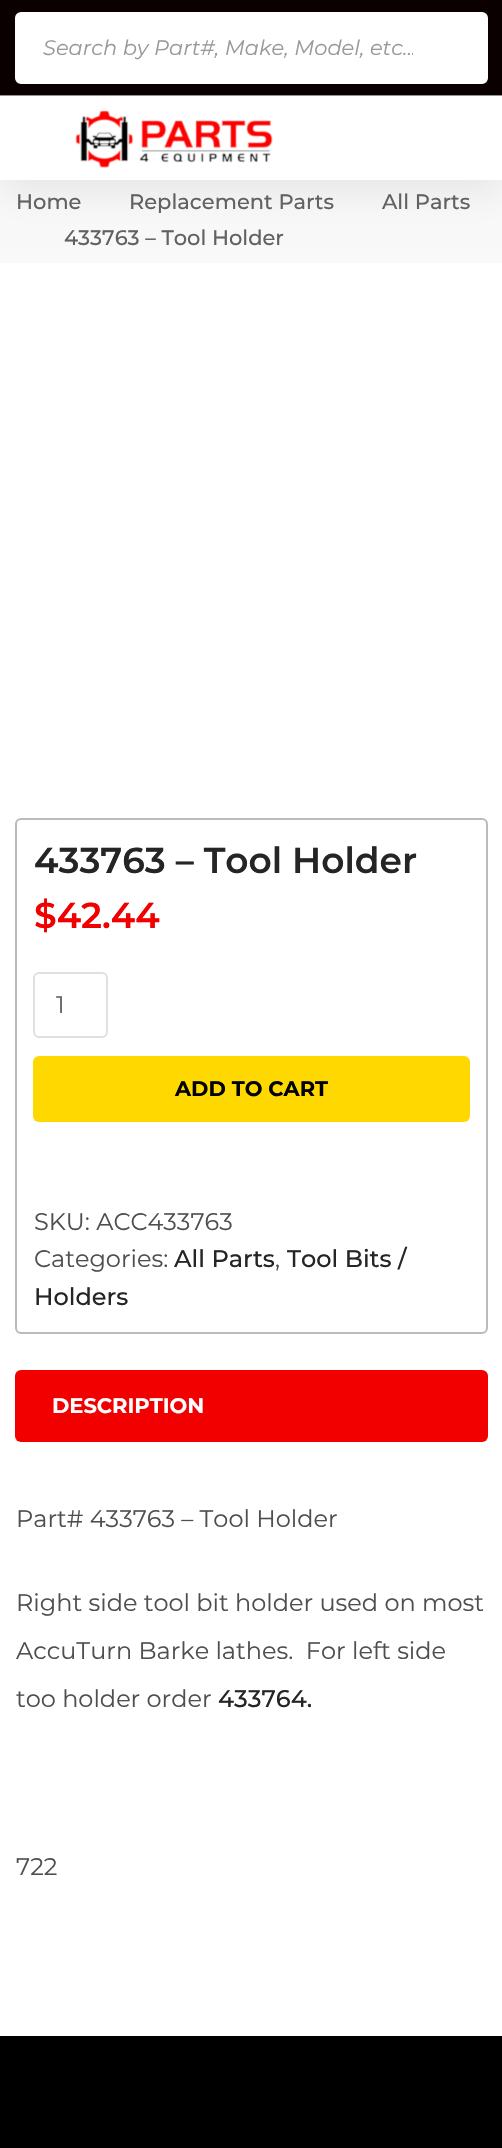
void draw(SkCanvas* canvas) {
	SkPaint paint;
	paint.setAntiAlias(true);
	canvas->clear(0xffffffff);
	paint.setColor(0xfff9f9f9);
	canvas->drawRect(SkRect::MakeXYWH(0, 180, 502, 83), paint);
	paint.setColor(0x14000000);
	paint.setMaskFilter(SkMaskFilter::MakeBlur(kNormal_SkBlurStyle, 18));
	canvas->drawRect(SkRect::MakeXYWH(0, 12, 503, 180), paint);
	paint.setMaskFilter(nullptr);
	paint.setColor(0xff0a0000);
	canvas->drawRect(SkRect::MakeXYWH(0, 0, 502, 95), paint);
	paint.setColor(0xff919191);
	canvas->drawRect(SkRect::MakeXYWH(0, 95, 502, 1), paint);
	paint.setColor(0xffffffff);
	canvas->drawRoundRect(SkRect::MakeXYWH(16.5, 13.5, 470, 69), 4.5, 4.5, paint);
	paint.setStroke(true);
	paint.setStrokeWidth(3);
	canvas->drawRoundRect(SkRect::MakeXYWH(16.5, 13.5, 470, 69), 4.5, 4.5, paint);
	canvas->save();
	canvas->clipRect(SkRect::MakeXYWH(42, 35, 371, 27));
	SkFont f1(fontMgr->matchFamilyStyle("Montserrat", SkFontStyle::Italic()), 21);
	f1.setSubpixel(true);
	paint.setStroke(false);
	paint.setColor(0xff999999);
	canvas->drawString("Search by Part#, Make, Model, etc...", 43, 55, f1, paint);
	canvas->restore();
	paint.setColor(0xffffffff);
	canvas->drawRect(SkRect::MakeXYWH(0, 96, 502, 84), paint);
	canvas->drawImageRect(SkImages::DeferredFromEncodedData(SkData::MakeFromFileName("img1.png")), SkRect::MakeXYWH(75, 110, 198, 58), SkSamplingOptions());
	SkFont f2(fontMgr->matchFamilyStyle("Montserrat", SkFontStyle(500, SkFontStyle::kNormal_Width, SkFontStyle::kUpright_Slant)), 21);
	f2.setSubpixel(true);
	paint.setColor(0xff616161);
	canvas->drawString("Home", 16, 209, f2, paint);
	canvas->drawString("Replacement Parts", 129, 209, f2, paint);
	canvas->drawString("All Parts", 382, 209, f2, paint);
	canvas->drawString("433763 – Tool Holder", 64, 245, f2, paint);
	paint.setStroke(true);
	paint.setStrokeWidth(2);
	paint.setColor(0xffbbbbbb);
	canvas->drawRoundRect(SkRect::MakeXYWH(16, 819, 471, 514), 5, 5, paint);
	SkFont f3(fontMgr->matchFamilyStyle("Montserrat", SkFontStyle(600, SkFontStyle::kNormal_Width, SkFontStyle::kUpright_Slant)), 36);
	f3.setSubpixel(true);
	paint.setStroke(false);
	paint.setColor(0xff252525);
	canvas->drawString("433763 – Tool Holder", 34, 873, f3, paint);
	paint.setColor(0xfff20000);
	canvas->drawString("$42.44", 34, 928, f3, paint);
	paint.setStroke(true);
	paint.setColor(0xffe0e0e0);
	canvas->drawRoundRect(SkRect::MakeXYWH(34, 973, 73, 64), 5, 5, paint);
	SkFont f4(fontMgr->matchFamilyStyle("Montserrat", SkFontStyle::Normal()), 24);
	f4.setSubpixel(true);
	paint.setStroke(false);
	paint.setColor(0xff616161);
	canvas->drawString("1", 56, 1013, f4, paint);
	paint.setColor(0xffffd800);
	canvas->drawRoundRect(SkRect::MakeXYWH(33, 1056, 437, 66), 6, 6, paint);
	SkFont f5(fontMgr->matchFamilyStyle("Montserrat", SkFontStyle::Bold()), 21);
	f5.setSubpixel(true);
	paint.setColor(0xff000000);
	canvas->drawString("ADD TO CART", 175, 1096, f5, paint);
	paint.setColor(0xff4f4f4f);
	canvas->drawString("SKU: ACC433763", 34, 1230, f4, paint);
	canvas->drawString("Categories:", 34, 1267, f4, paint);
	SkFont f6(fontMgr->matchFamilyStyle("Montserrat", SkFontStyle(500, SkFontStyle::kNormal_Width, SkFontStyle::kUpright_Slant)), 24);
	f6.setSubpixel(true);
	paint.setColor(0xff252525);
	canvas->drawString("All Parts", 174, 1267, f6, paint);
	paint.setColor(0xff4f4f4f);
	canvas->drawString(",", 275, 1267, f4, paint);
	paint.setColor(0xff252525);
	canvas->drawString("Tool Bits /", 287, 1267, f6, paint);
	canvas->drawString("Holders", 34, 1305, f6, paint);
	paint.setColor(0xfff20000);
	canvas->drawRoundRect(SkRect::MakeXYWH(15, 1370, 473, 72), 6, 6, paint);
	paint.setColor(0xffffffff);
	canvas->drawString("DESCRIPTION", 52, 1413, f5, paint);
	paint.setColor(0xff4f4f4f);
	canvas->drawString("Part# 433763 – Tool Holder", 16, 1527, f4, paint);
	canvas->drawString("Right side tool bit holder used on most", 16, 1611, f4, paint);
	canvas->drawString("AccuTurn Barke lathes.  For left side", 16, 1659, f4, paint);
	canvas->drawString("too holder order", 16, 1707, f4, paint);
	paint.setColor(0xff252525);
	canvas->drawString("433764.", 218, 1707, f6, paint);
	paint.setColor(0xff4f4f4f);
	canvas->drawString("722", 16, 1875, f4, paint);
	paint.setColor(0xff000000);
	canvas->drawRect(SkRect::MakeXYWH(0, 2036, 502, 112), paint);
}
